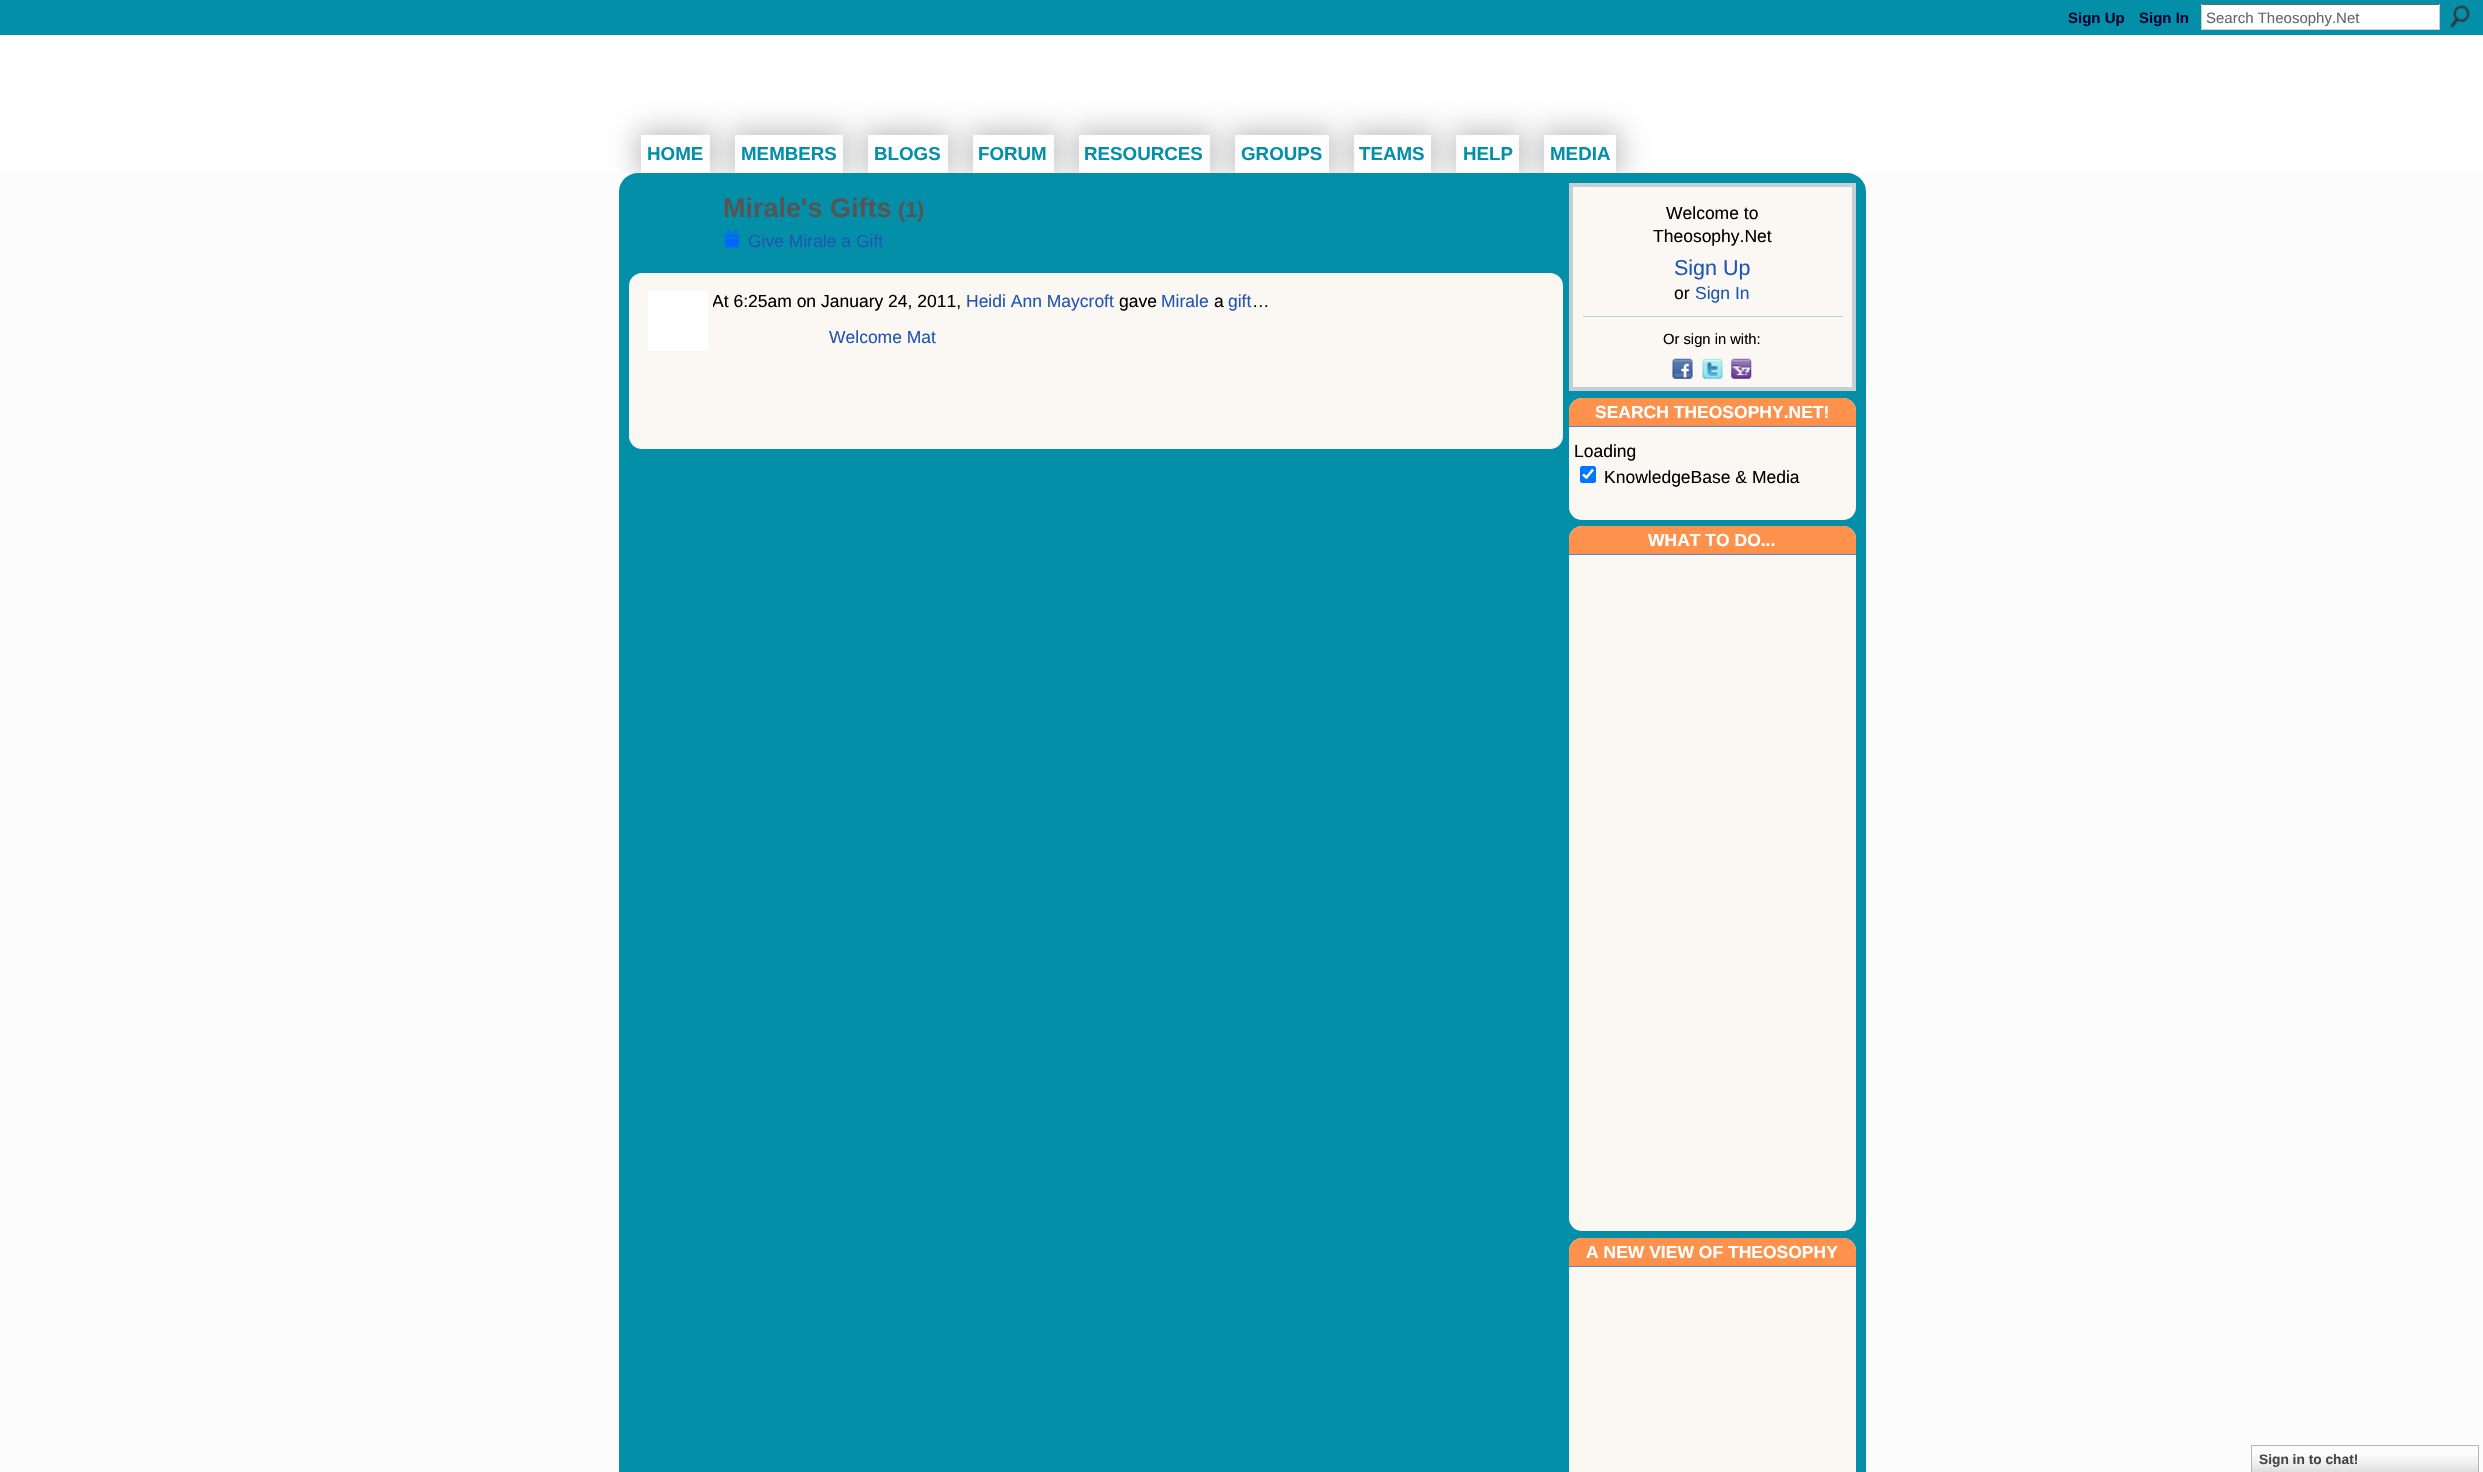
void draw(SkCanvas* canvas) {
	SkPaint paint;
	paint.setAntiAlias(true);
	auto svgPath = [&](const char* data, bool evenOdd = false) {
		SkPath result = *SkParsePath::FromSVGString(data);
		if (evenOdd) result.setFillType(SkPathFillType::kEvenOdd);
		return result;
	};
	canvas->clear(0xffffffff);
	paint.setColor(0xff048fa9);
	canvas->drawRect(SkRect::MakeXYWH(0, 0, 2483, 35), paint);
	SkFont f1(fontMgr->matchFamilyStyle("Liberation Sans", SkFontStyle::Bold()), 15);
	f1.setSubpixel(true);
	paint.setColor(0xff010433);
	canvas->drawString("Sign Up", 2068, 23, f1, paint);
	canvas->drawString("Sign In", 2139, 23, f1, paint);
	paint.setColor(0xffffffff);
	canvas->drawRect(SkRect::MakeXYWH(2202, 5, 237, 24), paint);
	paint.setColor(0xff666666);
	canvas->drawRect(SkRect::MakeXYWH(2201, 4, 239, 1), paint);
	paint.setColor(0xffcccccc);
	canvas->drawRect(SkRect::MakeXYWH(2439, 4, 1, 26), paint);
	canvas->drawRect(SkRect::MakeXYWH(2201, 29, 239, 1), paint);
	canvas->drawRect(SkRect::MakeXYWH(2201, 4, 1, 26), paint);
	SkFont f2(fontMgr->matchFamilyStyle("Liberation Sans", SkFontStyle::Normal()), 15);
	f2.setSubpixel(true);
	paint.setColor(0xff666666);
	canvas->drawString("Search Theosophy.Net", 2206, 23, f2, paint);
	canvas->drawImageRect(SkImages::DeferredFromEncodedData(SkData::MakeFromFileName("img1.png")), SkRect::MakeXYWH(2450, 5, 20, 23), SkSamplingOptions());
	canvas->save();
	canvas->clipPath(svgPath("M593 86H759V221H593ZM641 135H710V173H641Z", true), true);
	paint.setColor(0xffbababa);
	paint.setMaskFilter(SkMaskFilter::MakeBlur(kNormal_SkBlurStyle, 14.5));
	canvas->drawRect(SkRect::MakeXYWH(638, 131, 76, 45), paint);
	paint.setMaskFilter(nullptr);
	canvas->restore();
	SkFont f3(fontMgr->matchFamilyStyle("Liberation Sans", SkFontStyle::Bold()), 18.75);
	f3.setSubpixel(true);
	paint.setColor(0xff048fa9);
	canvas->drawString("HOME", 647, 160, f3, paint);
	canvas->save();
	canvas->clipPath(svgPath("M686 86H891V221H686ZM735 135H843V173H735Z", true), true);
	paint.setColor(0xffbababa);
	paint.setMaskFilter(SkMaskFilter::MakeBlur(kNormal_SkBlurStyle, 14.5));
	canvas->drawRect(SkRect::MakeXYWH(731, 131, 115, 45), paint);
	paint.setMaskFilter(nullptr);
	canvas->restore();
	paint.setColor(0xff048fa9);
	canvas->drawString("MEMBERS", 741, 160, f3, paint);
	canvas->save();
	canvas->clipPath(svgPath("M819 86H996V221H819ZM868 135H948V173H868Z", true), true);
	paint.setColor(0xffbababa);
	paint.setMaskFilter(SkMaskFilter::MakeBlur(kNormal_SkBlurStyle, 14.5));
	canvas->drawRect(SkRect::MakeXYWH(864, 131, 87, 45), paint);
	paint.setMaskFilter(nullptr);
	canvas->restore();
	paint.setColor(0xff048fa9);
	canvas->drawString("BLOGS", 874, 160, f3, paint);
	canvas->save();
	canvas->clipPath(svgPath("M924 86H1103V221H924ZM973 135H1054V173H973Z", true), true);
	paint.setColor(0xffbababa);
	paint.setMaskFilter(SkMaskFilter::MakeBlur(kNormal_SkBlurStyle, 14.5));
	canvas->drawRect(SkRect::MakeXYWH(969, 131, 89, 45), paint);
	paint.setMaskFilter(nullptr);
	canvas->restore();
	paint.setColor(0xff048fa9);
	canvas->drawString("FORUM", 978, 160, f3, paint);
	canvas->save();
	canvas->clipPath(svgPath("M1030 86H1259V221H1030ZM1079 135H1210V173H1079Z", true), true);
	paint.setColor(0xffbababa);
	paint.setMaskFilter(SkMaskFilter::MakeBlur(kNormal_SkBlurStyle, 14.5));
	canvas->drawRect(SkRect::MakeXYWH(1075, 131, 139, 45), paint);
	paint.setMaskFilter(nullptr);
	canvas->restore();
	paint.setColor(0xff048fa9);
	canvas->drawString("RESOURCES", 1084, 160, f3, paint);
	canvas->save();
	canvas->clipPath(svgPath("M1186 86H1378V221H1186ZM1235 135H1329V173H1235Z", true), true);
	paint.setColor(0xffbababa);
	paint.setMaskFilter(SkMaskFilter::MakeBlur(kNormal_SkBlurStyle, 14.5));
	canvas->drawRect(SkRect::MakeXYWH(1231, 131, 102, 45), paint);
	paint.setMaskFilter(nullptr);
	canvas->restore();
	paint.setColor(0xff048fa9);
	canvas->drawString("GROUPS", 1241, 160, f3, paint);
	canvas->save();
	canvas->clipPath(svgPath("M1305 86H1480V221H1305ZM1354 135H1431V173H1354Z", true), true);
	paint.setColor(0xffbababa);
	paint.setMaskFilter(SkMaskFilter::MakeBlur(kNormal_SkBlurStyle, 14.5));
	canvas->drawRect(SkRect::MakeXYWH(1350, 131, 85, 45), paint);
	paint.setMaskFilter(nullptr);
	canvas->restore();
	paint.setColor(0xff048fa9);
	canvas->drawString("TEAMS", 1359, 160, f3, paint);
	canvas->save();
	canvas->clipPath(svgPath("M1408 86H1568V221H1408ZM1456 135H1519V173H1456Z", true), true);
	paint.setColor(0xffbababa);
	paint.setMaskFilter(SkMaskFilter::MakeBlur(kNormal_SkBlurStyle, 14.5));
	canvas->drawRect(SkRect::MakeXYWH(1453, 131, 70, 45), paint);
	paint.setMaskFilter(nullptr);
	canvas->restore();
	paint.setColor(0xff048fa9);
	canvas->drawString("HELP", 1463, 160, f3, paint);
	canvas->save();
	canvas->clipPath(svgPath("M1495 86H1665V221H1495ZM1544 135H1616V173H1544Z", true), true);
	paint.setColor(0xffbababa);
	paint.setMaskFilter(SkMaskFilter::MakeBlur(kNormal_SkBlurStyle, 14.5));
	canvas->drawRect(SkRect::MakeXYWH(1540, 131, 80, 45), paint);
	paint.setMaskFilter(nullptr);
	canvas->restore();
	paint.setColor(0xff048fa9);
	canvas->drawString("MEDIA", 1550, 160, f3, paint);
	paint.setColor(0xfffcfcfc);
	canvas->drawRect(SkRect::MakeXYWH(0, 173, 2483, 1299), paint);
	paint.setColor(0xff048fa9);
	canvas->drawRoundRect(SkRect::MakeXYWH(624, 178, 1237, 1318), 14, 14, paint);
	paint.setStroke(true);
	paint.setStrokeWidth(10);
	canvas->drawRoundRect(SkRect::MakeXYWH(624, 178, 1237, 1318), 14, 14, paint);
	SkFont f4(fontMgr->matchFamilyStyle("Liberation Sans", SkFontStyle::Bold()), 27);
	f4.setSubpixel(true);
	paint.setStroke(false);
	paint.setColor(0xff555555);
	canvas->drawString("Mirale's Gifts", 723, 217, f4, paint);
	SkFont f5(fontMgr->matchFamilyStyle("Liberation Sans", SkFontStyle::Bold()), 21.5);
	f5.setSubpixel(true);
	canvas->drawString("(1)", 898, 217, f5, paint);
	canvas->drawImageRect(SkImages::DeferredFromEncodedData(SkData::MakeFromFileName("img2.png")), SkRect::MakeXYWH(723, 230, 18, 18), SkSamplingOptions());
	SkFont f6(fontMgr->matchFamilyStyle("Liberation Sans", SkFontStyle::Normal()), 17.5);
	f6.setSubpixel(true);
	paint.setColor(0xff2055b5);
	canvas->drawString("Give Mirale a Gift", 748, 247, f6, paint);
	paint.setColor(0xfffbf8f4);
	canvas->drawRoundRect(SkRect::MakeXYWH(629, 273, 934, 176), 13, 13, paint);
	paint.setColor(0xffffffff);
	canvas->drawRect(SkRect::MakeXYWH(648, 291, 60, 60), paint);
	canvas->save();
	canvas->clipRect(SkRect::MakeXYWH(713, 291, 787, 20));
	paint.setColor(0xff000000);
	canvas->drawString("At 6:25am on January 24, 2011,", 712, 307, f6, paint);
	canvas->restore();
	paint.setColor(0xff2055b5);
	canvas->drawString("Heidi Ann Maycroft", 966, 307, f6, paint);
	paint.setColor(0xff000000);
	canvas->drawString("gave", 1119, 307, f6, paint);
	paint.setColor(0xff2055b5);
	canvas->drawString("Mirale", 1161, 307, f6, paint);
	paint.setColor(0xff000000);
	canvas->drawString("a", 1214, 307, f6, paint);
	paint.setColor(0xff2055b5);
	canvas->drawString("gift", 1228, 307, f6, paint);
	paint.setColor(0xff000000);
	canvas->drawString("…", 1252, 307, f6, paint);
	paint.setColor(0xff2055b5);
	canvas->drawString("Welcome Mat", 829, 343, f6, paint);
	paint.setColor(0xfffbf8f4);
	canvas->drawRect(SkRect::MakeXYWH(1571, 185, 283, 204), paint);
	paint.setStroke(true);
	paint.setStrokeWidth(4);
	paint.setColor(0xffc4d0d5);
	canvas->drawRect(SkRect::MakeXYWH(1571, 185, 283, 204), paint);
	paint.setStroke(false);
	paint.setColor(0xff000000);
	canvas->drawString("Welcome to", 1666, 219, f6, paint);
	canvas->drawString("Theosophy.Net", 1653, 242, f6, paint);
	SkFont f7(fontMgr->matchFamilyStyle("Liberation Sans", SkFontStyle::Normal()), 21.5);
	f7.setSubpixel(true);
	paint.setColor(0xff2055b5);
	canvas->drawString("Sign Up", 1674, 275, f7, paint);
	paint.setColor(0xff000000);
	canvas->drawString("or", 1674, 299, f6, paint);
	paint.setColor(0xff2055b5);
	canvas->drawString("Sign In", 1695, 299, f6, paint);
	paint.setColor(0xffc4d0d5);
	canvas->drawRect(SkRect::MakeXYWH(1583, 316, 260, 1), paint);
	SkFont f8(fontMgr->matchFamilyStyle("Liberation Sans", SkFontStyle::Normal()), 14.75);
	f8.setSubpixel(true);
	paint.setColor(0xff000000);
	canvas->drawString("Or sign in with:", 1663, 344, f8, paint);
	canvas->drawImageRect(SkImages::DeferredFromEncodedData(SkData::MakeFromFileName("img3.png")), SkRect::MakeXYWH(1672, 358, 21, 21), SkSamplingOptions());
	canvas->drawImageRect(SkImages::DeferredFromEncodedData(SkData::MakeFromFileName("img4.png")), SkRect::MakeXYWH(1702, 358, 21, 21), SkSamplingOptions());
	canvas->drawImageRect(SkImages::DeferredFromEncodedData(SkData::MakeFromFileName("img5.png")), SkRect::MakeXYWH(1731, 358, 21, 21), SkSamplingOptions());
	paint.setColor(0xfffbf8f4);
	canvas->drawRoundRect(SkRect::MakeXYWH(1569, 398, 287, 122), 13, 13, paint);
	paint.setColor(0xfffe914c);
	canvas->drawPath(svgPath("M1582 398H1843C1850 398 1856 404 1856 411V426H1569V411C1569 404 1575 398 1582 398Z"), paint);
	paint.setColor(0xff5289c4);
	canvas->drawRect(SkRect::MakeXYWH(1569, 426, 287, 1), paint);
	SkFont f9(fontMgr->matchFamilyStyle("Liberation Sans", SkFontStyle::Bold()), 17.5);
	f9.setSubpixel(true);
	paint.setColor(0xffffffff);
	canvas->drawString("SEARCH THEOSOPHY.NET!", 1595, 418, f9, paint);
	paint.setColor(0xff000000);
	canvas->drawString("Loading", 1574, 457, f6, paint);
	paint.setColor(0xff0075ff);
	canvas->drawRoundRect(SkRect::MakeXYWH(1580, 466, 16, 17), 2.5, 2.5, paint);
	paint.setStroke(true);
	paint.setStrokeWidth(2.6);
	paint.setColor(0xffffffff);
	canvas->drawPath(svgPath("M1583 474.5L1586.5 477.5L1593 469.5"), paint);
	paint.setStroke(false);
	paint.setColor(0xff000000);
	canvas->drawString("KnowledgeBase & Media", 1604, 483, f6, paint);
	paint.setColor(0xfffbf8f4);
	canvas->drawRoundRect(SkRect::MakeXYWH(1569, 526, 287, 705), 13, 13, paint);
	paint.setColor(0xfffe914c);
	canvas->drawPath(svgPath("M1582 526H1843C1850 526 1856 532 1856 539V554H1569V539C1569 532 1575 526 1582 526Z"), paint);
	paint.setColor(0xff5289c4);
	canvas->drawRect(SkRect::MakeXYWH(1569, 554, 287, 1), paint);
	paint.setColor(0xffffffff);
	canvas->drawString("WHAT TO DO...", 1648, 546, f9, paint);
	paint.setColor(0xfffbf8f4);
	canvas->drawRoundRect(SkRect::MakeXYWH(1569, 1238, 287, 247), 13, 13, paint);
	paint.setColor(0xfffe914c);
	canvas->drawPath(svgPath("M1582 1238H1843C1850 1238 1856 1244 1856 1251V1266H1569V1251C1569 1244 1575 1238 1582 1238Z"), paint);
	paint.setColor(0xff5289c4);
	canvas->drawRect(SkRect::MakeXYWH(1569, 1266, 287, 1), paint);
	paint.setColor(0xffffffff);
	canvas->drawString("A NEW VIEW OF THEOSOPHY", 1586, 1258, f9, paint);
	canvas->drawImageRect(SkImages::DeferredFromEncodedData(SkData::MakeFromFileName("img6.png")), SkRect::MakeXYWH(2252, 1456, 226, 16), SkSamplingOptions());
	paint.setStroke(true);
	paint.setStrokeWidth(1);
	paint.setColor(0xffb7b7b7);
	canvas->drawRect(SkRect::MakeXYWH(2251.5, 1445.5, 227, 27), paint);
	paint.setStroke(false);
	paint.setColor(0xffdedede);
	canvas->drawRect(SkRect::MakeXYWH(2259, 1471, 33, 1), paint);
	SkFont f10(fontMgr->matchFamilyStyle("Liberation Sans", SkFontStyle::Bold()), 13.75);
	f10.setSubpixel(true);
	paint.setColor(0xff454545);
	canvas->drawString("Sign in to chat!", 2259, 1464, f10, paint);
}
